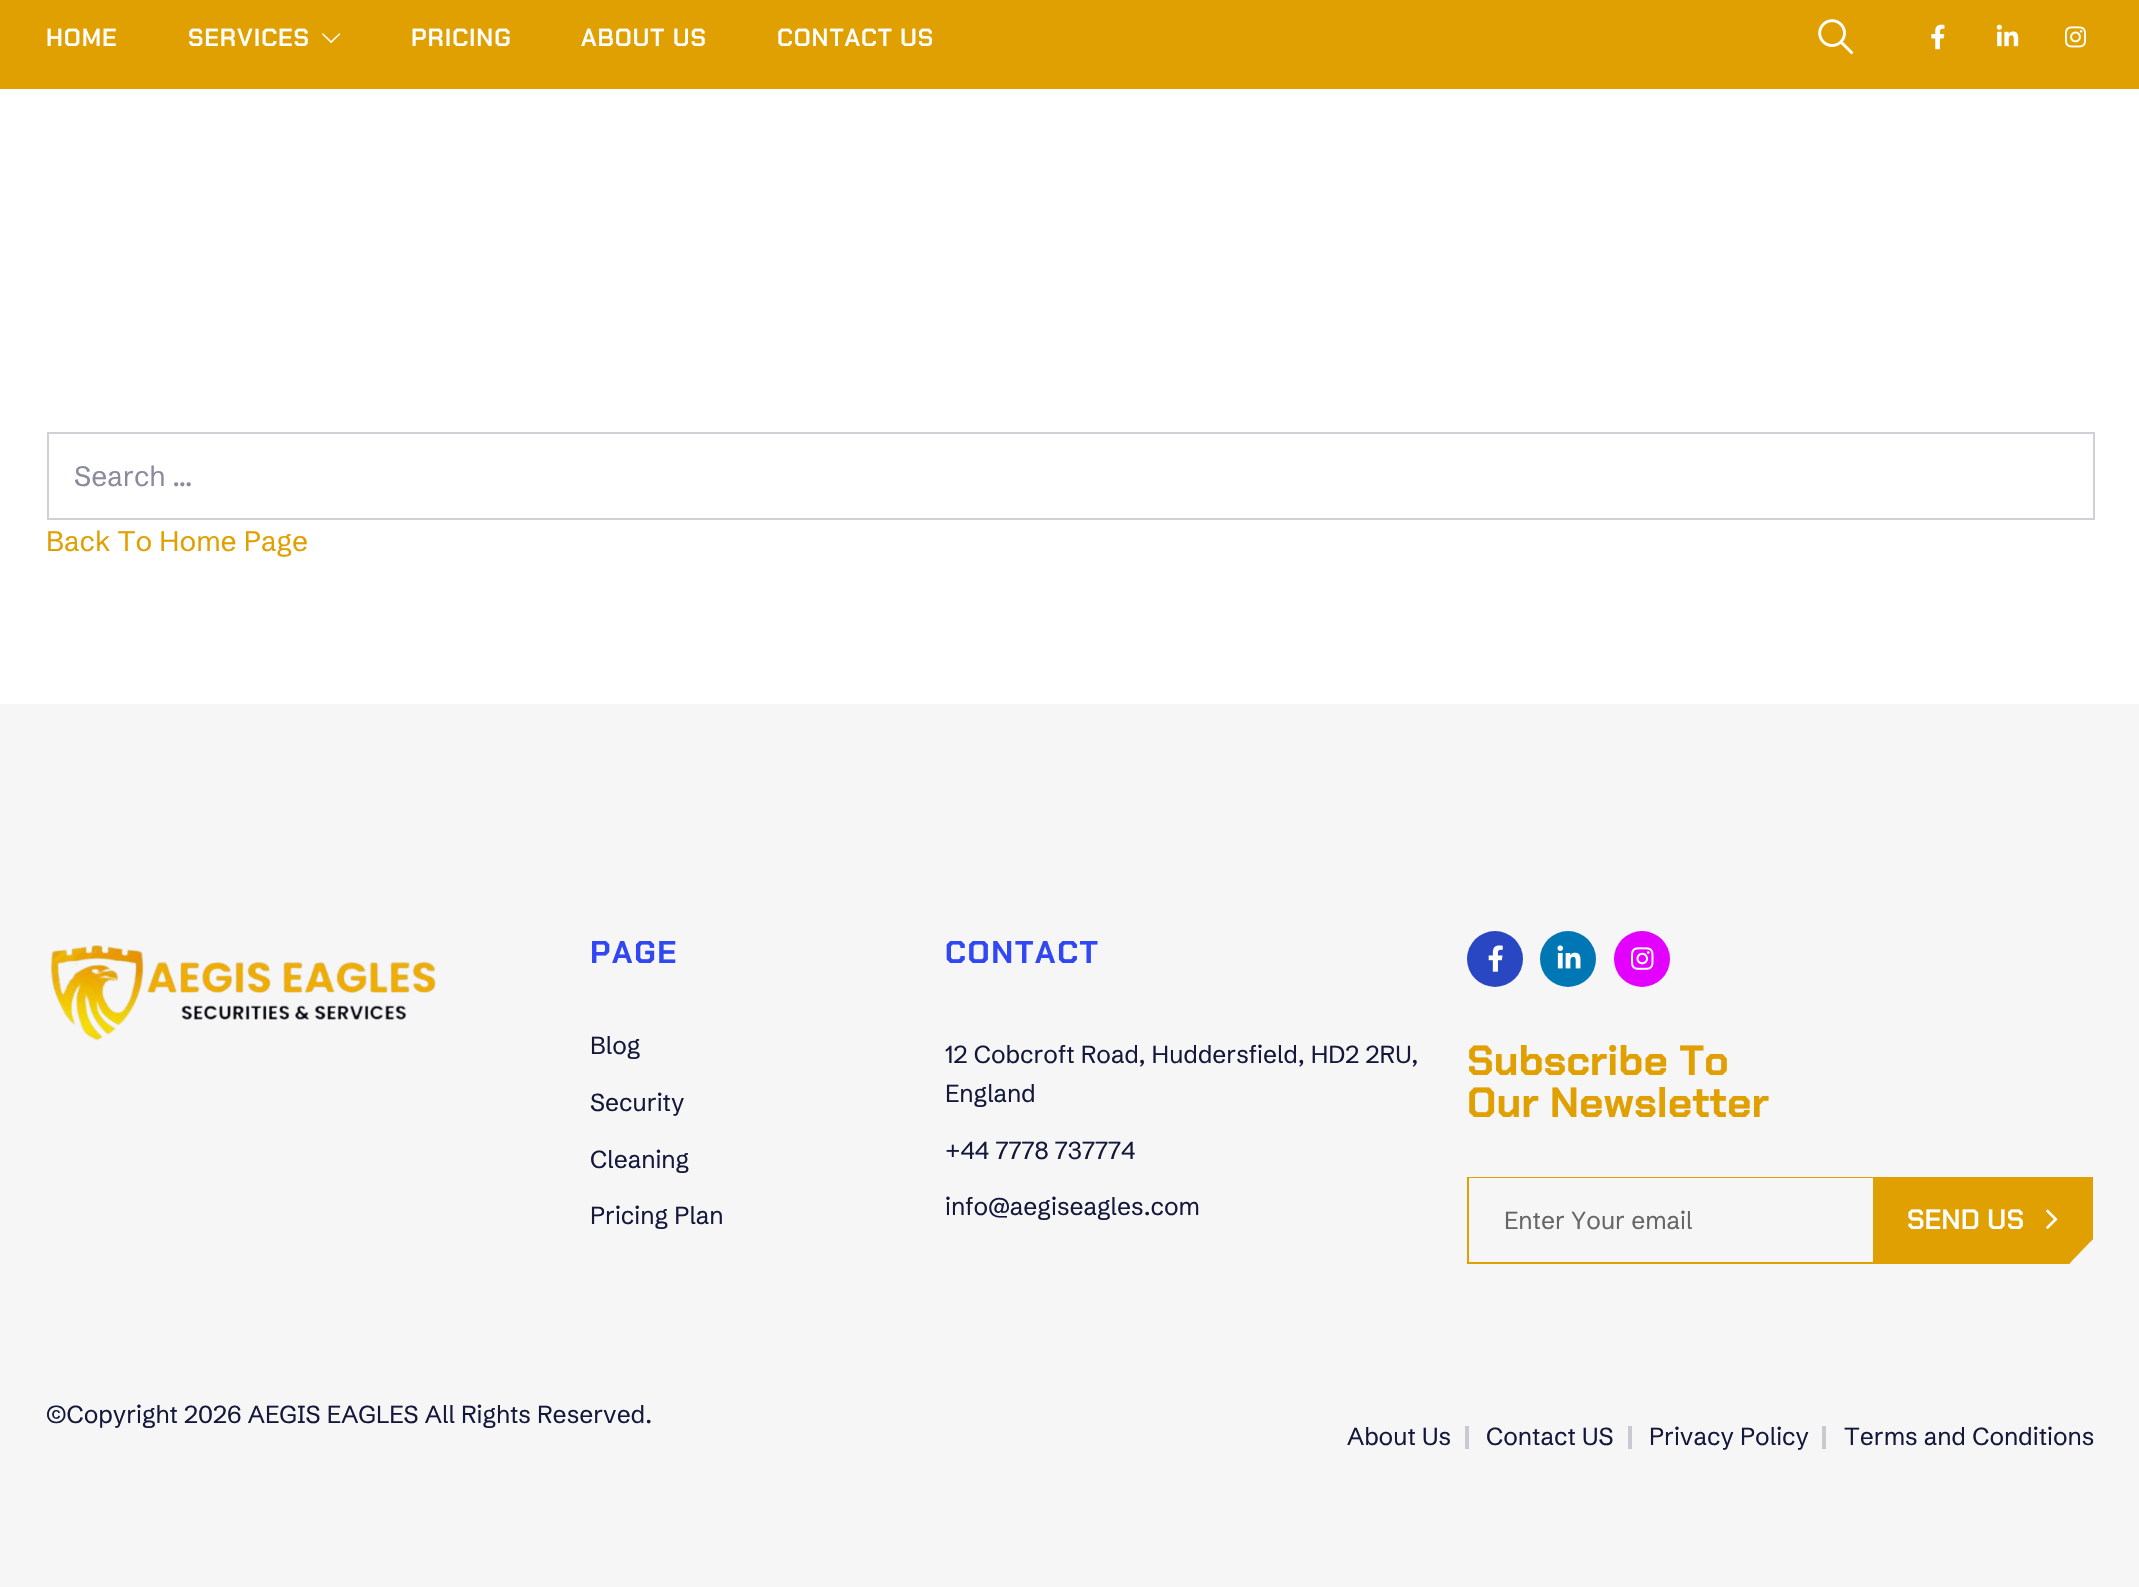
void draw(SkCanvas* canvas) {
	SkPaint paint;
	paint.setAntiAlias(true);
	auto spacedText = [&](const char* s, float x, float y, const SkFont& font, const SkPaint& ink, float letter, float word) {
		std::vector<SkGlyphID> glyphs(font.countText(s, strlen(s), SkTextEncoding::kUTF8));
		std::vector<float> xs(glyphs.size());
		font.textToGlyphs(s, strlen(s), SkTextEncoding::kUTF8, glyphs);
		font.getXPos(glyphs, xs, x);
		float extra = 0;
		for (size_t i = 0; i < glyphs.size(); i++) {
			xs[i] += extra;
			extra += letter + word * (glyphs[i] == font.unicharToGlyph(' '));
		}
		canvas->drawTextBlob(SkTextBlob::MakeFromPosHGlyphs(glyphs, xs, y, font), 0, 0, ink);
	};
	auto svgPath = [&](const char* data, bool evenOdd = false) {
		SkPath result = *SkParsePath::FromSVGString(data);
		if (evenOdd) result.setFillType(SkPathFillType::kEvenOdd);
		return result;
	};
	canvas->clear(0xffffffff);
	paint.setColor(0xffe0a001);
	canvas->drawRect(SkRect::MakeXYWH(0, 0, 2139, 89), paint);
	SkFont f1(fontMgr->matchFamilyStyle("Chakra Petch", SkFontStyle(600, SkFontStyle::kNormal_Width, SkFontStyle::kUpright_Slant)), 24.5);
	f1.setSubpixel(true);
	paint.setColor(0xffffffff);
	spacedText("HOME", 46, 46, f1, paint, 0.9, 0);
	spacedText("SERVICES", 188, 46, f1, paint, 0.9, 0);
	canvas->drawImageRect(SkImages::DeferredFromEncodedData(SkData::MakeFromFileName("img1.png")), SkRect::MakeXYWH(322, 33, 19, 10), SkSamplingOptions());
	spacedText("PRICING", 411, 46, f1, paint, 0.9, 0);
	spacedText("ABOUT US", 581, 46, f1, paint, 0.9, 0);
	spacedText("CONTACT US", 777, 46, f1, paint, 0.9, 0);
	canvas->drawImageRect(SkImages::DeferredFromEncodedData(SkData::MakeFromFileName("img2.png")), SkRect::MakeXYWH(1818, 19, 36, 36), SkSamplingOptions());
	canvas->drawImageRect(SkImages::DeferredFromEncodedData(SkData::MakeFromFileName("img3.png")), SkRect::MakeXYWH(1931, 24, 14, 26), SkSamplingOptions());
	canvas->drawImageRect(SkImages::DeferredFromEncodedData(SkData::MakeFromFileName("img4.png")), SkRect::MakeXYWH(1996, 24, 23, 23), SkSamplingOptions());
	canvas->drawImageRect(SkImages::DeferredFromEncodedData(SkData::MakeFromFileName("img5.png")), SkRect::MakeXYWH(2065, 26, 21, 22), SkSamplingOptions());
	paint.setStroke(true);
	paint.setStrokeWidth(2);
	paint.setColor(0xffd0d1d8);
	canvas->drawRect(SkRect::MakeXYWH(48, 433, 2046, 86), paint);
	SkFont f2(fontMgr->matchFamilyStyle("Schibsted Grotesk", SkFontStyle::Normal()), 28);
	f2.setSubpixel(true);
	paint.setStroke(false);
	paint.setColor(0xff8a8c9e);
	canvas->drawString("Search …", 74, 486, f2, paint);
	paint.setColor(0xffe0a001);
	canvas->drawString("Back To Home Page", 46, 551, f2, paint);
	paint.setColor(0xfff6f6f6);
	canvas->drawRect(SkRect::MakeXYWH(0, 704, 2139, 883), paint);
	canvas->drawImageRect(SkImages::DeferredFromEncodedData(SkData::MakeFromFileName("img6.png")), SkRect::MakeXYWH(50, 945, 386, 96), SkSamplingOptions());
	SkFont f3(fontMgr->matchFamilyStyle("Chakra Petch", SkFontStyle::Bold()), 31.5);
	f3.setSubpixel(true);
	paint.setColor(0xff3147f3);
	spacedText("PAGE", 590, 963, f3, paint, 1.75, 0);
	SkFont f4(fontMgr->matchFamilyStyle("Schibsted Grotesk", SkFontStyle::Normal()), 24.5);
	f4.setSubpixel(true);
	paint.setColor(0xff14193c);
	canvas->drawString("Blog", 590, 1054, f4, paint);
	canvas->drawString("Security", 590, 1111, f4, paint);
	canvas->drawString("Cleaning", 590, 1168, f4, paint);
	canvas->drawString("Pricing Plan", 590, 1224, f4, paint);
	paint.setColor(0xff3147f3);
	spacedText("CONTACT", 945, 963, f3, paint, 1.75, 0);
	paint.setColor(0xff14193c);
	canvas->drawString("12 Cobcroft Road, Huddersfield, HD2 2RU,", 945, 1063, f4, paint);
	canvas->drawString("England", 945, 1102, f4, paint);
	canvas->drawString("+44 7778 737774", 945, 1159, f4, paint);
	canvas->drawString("info@aegiseagles.com", 945, 1215, f4, paint);
	paint.setColor(0xff2947c3);
	canvas->drawCircle(1495, 959, 28, paint);
	canvas->drawImageRect(SkImages::DeferredFromEncodedData(SkData::MakeFromFileName("img7.png")), SkRect::MakeXYWH(1488, 945, 15, 27), SkSamplingOptions());
	paint.setColor(0xff0077b5);
	canvas->drawCircle(1568, 959, 28, paint);
	canvas->drawImageRect(SkImages::DeferredFromEncodedData(SkData::MakeFromFileName("img8.png")), SkRect::MakeXYWH(1557, 945, 24, 24), SkSamplingOptions());
	paint.setColor(0xffe400ff);
	canvas->drawCircle(1642, 959, 28, paint);
	canvas->drawImageRect(SkImages::DeferredFromEncodedData(SkData::MakeFromFileName("img9.png")), SkRect::MakeXYWH(1631, 947, 23, 23), SkSamplingOptions());
	SkFont f5(fontMgr->matchFamilyStyle("Chakra Petch", SkFontStyle::Bold()), 42);
	f5.setSubpixel(true);
	paint.setColor(0xffe0a001);
	canvas->drawString("Subscribe To", 1467, 1075, f5, paint);
	canvas->drawString("Our Newsletter", 1467, 1117, f5, paint);
	canvas->drawPath(svgPath("M1469 1178V1262H2071L2069 1264H1467V1177H2093V1239L2091 1241V1178Z"), paint);
	paint.setColor(0xff666666);
	canvas->drawString("Enter Your email", 1504, 1229, f4, paint);
	paint.setColor(0xffe0a001);
	canvas->drawPath(svgPath("M1873 1264V1177H2093V1239L2069 1264Z"), paint);
	SkFont f6(fontMgr->matchFamilyStyle("Chakra Petch", SkFontStyle(600, SkFontStyle::kNormal_Width, SkFontStyle::kUpright_Slant)), 28);
	f6.setSubpixel(true);
	paint.setColor(0xffffffff);
	canvas->drawString("SEND US", 1907, 1229, f6, paint);
	canvas->drawImageRect(SkImages::DeferredFromEncodedData(SkData::MakeFromFileName("img10.png")), SkRect::MakeXYWH(2046, 1209, 12, 20), SkSamplingOptions());
	paint.setColor(0xff14193c);
	canvas->drawString("©Copyright 2026 AEGIS EAGLES All Rights Reserved.", 46, 1423, f4, paint);
	canvas->drawString("About Us", 1347, 1445, f4, paint);
	paint.setColor(0xffc9cad1);
	canvas->drawRect(SkRect::MakeXYWH(1465, 1426, 4, 23), paint);
	paint.setColor(0xff14193c);
	canvas->drawString("Contact US", 1486, 1445, f4, paint);
	paint.setColor(0xffc9cad1);
	canvas->drawRect(SkRect::MakeXYWH(1628, 1426, 4, 23), paint);
	paint.setColor(0xff14193c);
	canvas->drawString("Privacy Policy", 1649, 1445, f4, paint);
	paint.setColor(0xffc9cad1);
	canvas->drawRect(SkRect::MakeXYWH(1822, 1426, 4, 23), paint);
	paint.setColor(0xff14193c);
	canvas->drawString("Terms and Conditions", 1844, 1445, f4, paint);
}
